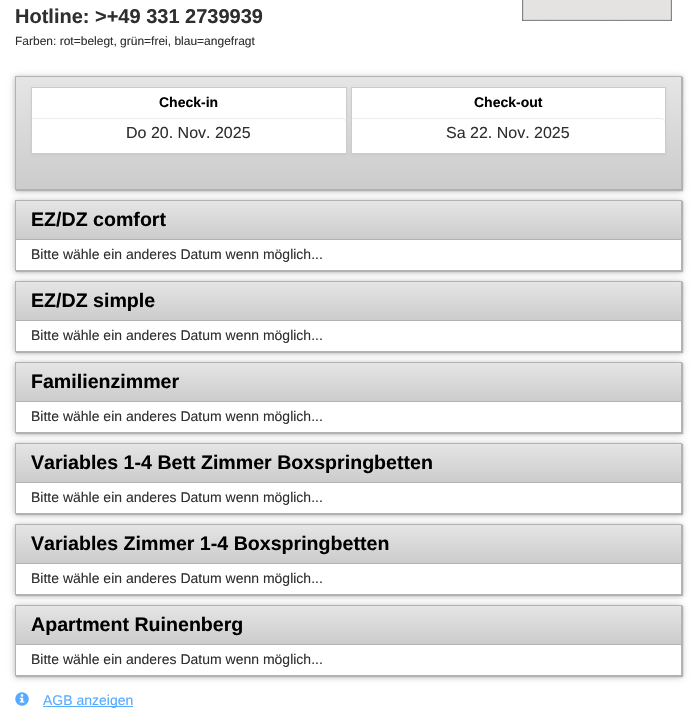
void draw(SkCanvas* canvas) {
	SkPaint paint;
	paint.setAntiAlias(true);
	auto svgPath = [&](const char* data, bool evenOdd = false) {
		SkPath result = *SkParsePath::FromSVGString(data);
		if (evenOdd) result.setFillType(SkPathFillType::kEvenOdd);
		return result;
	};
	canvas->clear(0xffffffff);
	SkFont f1(fontMgr->matchFamilyStyle("Liberation Sans", SkFontStyle::Bold()), 20);
	f1.setSubpixel(true);
	paint.setColor(0xff2f2f2f);
	canvas->drawString("Hotline: >+49 331 2739939", 15, 23, f1, paint);
	SkFont f2(fontMgr->matchFamilyStyle("Liberation Sans", SkFontStyle::Normal()), 12);
	f2.setSubpixel(true);
	canvas->drawString("Farben: rot=belegt, grün=frei, blau=angefragt", 15, 45, f2, paint);
	canvas->drawImageRect(SkImages::DeferredFromEncodedData(SkData::MakeFromFileName("img1.png")), SkRect::MakeXYWH(522, 0, 150, 21), SkSamplingOptions());
	paint.setColor(0xffb2b2b2);
	paint.setMaskFilter(SkMaskFilter::MakeBlur(kNormal_SkBlurStyle, 0.5));
	canvas->drawRect(SkRect::MakeXYWH(16, 77, 667, 114), paint);
	paint.setMaskFilter(nullptr);
	paint.setMaskFilter(SkMaskFilter::MakeBlur(kNormal_SkBlurStyle, 3));
	canvas->drawRect(SkRect::MakeXYWH(15, 77, 667, 114), paint);
	paint.setMaskFilter(nullptr);
	{
		const SkColor colors[] = {0xffe5e5e5, 0xffcccccc};
		const float stops[] = {0, 1};
		const SkPoint ends[] = {{349, 77}, {349, 189}};
		paint.setShader(SkGradientShader::MakeLinear(ends, colors, stops, 2, SkTileMode::kClamp));
		paint.setAlpha(255);
	}
	canvas->drawRect(SkRect::MakeXYWH(16, 77, 665, 112), paint);
	paint.setStroke(true);
	paint.setStrokeWidth(1);
	paint.setShader(nullptr);
	paint.setColor(0xffb2b2b2);
	canvas->drawRect(SkRect::MakeXYWH(15.5, 76.5, 666, 113), paint);
	paint.setStroke(false);
	paint.setColor(0x0d000000);
	paint.setMaskFilter(SkMaskFilter::MakeBlur(kNormal_SkBlurStyle, 1));
	canvas->drawRect(SkRect::MakeXYWH(31, 88, 316, 67), paint);
	paint.setMaskFilter(nullptr);
	paint.setColor(0xffffffff);
	canvas->drawRect(SkRect::MakeXYWH(31.5, 87.5, 315, 66), paint);
	paint.setStroke(true);
	paint.setColor(0xffcccccc);
	canvas->drawRect(SkRect::MakeXYWH(31.5, 87.5, 315, 66), paint);
	SkFont f3(fontMgr->matchFamilyStyle("Liberation Sans", SkFontStyle::Bold()), 14);
	f3.setSubpixel(true);
	paint.setStroke(false);
	paint.setColor(0xff000000);
	canvas->drawString("Check-in", 159, 107, f3, paint);
	paint.setColor(0xffececec);
	canvas->drawPath(svgPath("M32 119H342C344 119 346 121 346 123V122C346 120 344 118 342 118H32Z"), paint);
	SkFont f4(fontMgr->matchFamilyStyle("Liberation Sans", SkFontStyle::Normal()), 16);
	f4.setSubpixel(true);
	paint.setColor(0xff2f2f2f);
	canvas->drawString("Do 20. Nov. 2025", 126, 138, f4, paint);
	paint.setColor(0x0d000000);
	paint.setMaskFilter(SkMaskFilter::MakeBlur(kNormal_SkBlurStyle, 1));
	canvas->drawRect(SkRect::MakeXYWH(351, 88, 315, 67), paint);
	paint.setMaskFilter(nullptr);
	paint.setColor(0xffffffff);
	canvas->drawRect(SkRect::MakeXYWH(351.5, 87.5, 314, 66), paint);
	paint.setStroke(true);
	paint.setColor(0xffcccccc);
	canvas->drawRect(SkRect::MakeXYWH(351.5, 87.5, 314, 66), paint);
	paint.setStroke(false);
	paint.setColor(0xff000000);
	canvas->drawString("Check-out", 474, 107, f3, paint);
	paint.setColor(0xffececec);
	canvas->drawPath(svgPath("M352 119H661C663 119 665 121 665 123V122C665 120 663 118 661 118H352Z"), paint);
	paint.setColor(0xff2f2f2f);
	canvas->drawString("Sa 22. Nov. 2025", 446, 138, f4, paint);
	canvas->save();
	canvas->clipPath(svgPath("M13 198H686V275H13ZM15 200H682V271H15Z", true), true);
	paint.setColor(0xffb2b2b2);
	paint.setMaskFilter(SkMaskFilter::MakeBlur(kNormal_SkBlurStyle, 0.5));
	canvas->drawRect(SkRect::MakeXYWH(16, 201, 667, 71), paint);
	paint.setMaskFilter(nullptr);
	canvas->restore();
	canvas->save();
	canvas->clipPath(svgPath("M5 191H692V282H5ZM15 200H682V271H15Z", true), true);
	paint.setMaskFilter(SkMaskFilter::MakeBlur(kNormal_SkBlurStyle, 3));
	canvas->drawRect(SkRect::MakeXYWH(15, 201, 667, 71), paint);
	paint.setMaskFilter(nullptr);
	canvas->restore();
	paint.setStroke(true);
	canvas->drawRect(SkRect::MakeXYWH(15.5, 200.5, 666, 70), paint);
	paint.setStroke(false);
	{
		const SkColor colors[] = {0xffe5e5e5, 0xffcccccc};
		const float stops[] = {0, 1};
		const SkPoint ends[] = {{349, 201}, {349, 239}};
		paint.setShader(SkGradientShader::MakeLinear(ends, colors, stops, 2, SkTileMode::kClamp));
		paint.setAlpha(255);
	}
	canvas->drawRect(SkRect::MakeXYWH(16, 201, 665, 38), paint);
	paint.setShader(nullptr);
	paint.setColor(0xffb2b2b2);
	canvas->drawRect(SkRect::MakeXYWH(16, 239, 665, 1), paint);
	SkFont f5(fontMgr->matchFamilyStyle("Liberation Sans", SkFontStyle::Bold()), 19.6);
	f5.setSubpixel(true);
	paint.setColor(0xff000000);
	canvas->drawString("EZ/DZ comfort", 31, 226, f5, paint);
	SkFont f6(fontMgr->matchFamilyStyle("Liberation Sans", SkFontStyle::Normal()), 14);
	f6.setSubpixel(true);
	paint.setColor(0xff2f2f2f);
	canvas->drawString("Bitte wähle ein anderes Datum wenn möglich...", 31, 259, f6, paint);
	canvas->save();
	canvas->clipPath(svgPath("M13 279H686V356H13ZM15 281H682V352H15Z", true), true);
	paint.setColor(0xffb2b2b2);
	paint.setMaskFilter(SkMaskFilter::MakeBlur(kNormal_SkBlurStyle, 0.5));
	canvas->drawRect(SkRect::MakeXYWH(16, 282, 667, 71), paint);
	paint.setMaskFilter(nullptr);
	canvas->restore();
	canvas->save();
	canvas->clipPath(svgPath("M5 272H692V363H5ZM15 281H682V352H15Z", true), true);
	paint.setMaskFilter(SkMaskFilter::MakeBlur(kNormal_SkBlurStyle, 3));
	canvas->drawRect(SkRect::MakeXYWH(15, 282, 667, 71), paint);
	paint.setMaskFilter(nullptr);
	canvas->restore();
	paint.setStroke(true);
	canvas->drawRect(SkRect::MakeXYWH(15.5, 281.5, 666, 70), paint);
	paint.setStroke(false);
	{
		const SkColor colors[] = {0xffe5e5e5, 0xffcccccc};
		const float stops[] = {0, 1};
		const SkPoint ends[] = {{349, 282}, {349, 320}};
		paint.setShader(SkGradientShader::MakeLinear(ends, colors, stops, 2, SkTileMode::kClamp));
		paint.setAlpha(255);
	}
	canvas->drawRect(SkRect::MakeXYWH(16, 282, 665, 38), paint);
	paint.setShader(nullptr);
	paint.setColor(0xffb2b2b2);
	canvas->drawRect(SkRect::MakeXYWH(16, 320, 665, 1), paint);
	paint.setColor(0xff000000);
	canvas->drawString("EZ/DZ simple", 31, 307, f5, paint);
	paint.setColor(0xff2f2f2f);
	canvas->drawString("Bitte wähle ein anderes Datum wenn möglich...", 31, 340, f6, paint);
	canvas->save();
	canvas->clipPath(svgPath("M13 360H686V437H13ZM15 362H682V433H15Z", true), true);
	paint.setColor(0xffb2b2b2);
	paint.setMaskFilter(SkMaskFilter::MakeBlur(kNormal_SkBlurStyle, 0.5));
	canvas->drawRect(SkRect::MakeXYWH(16, 363, 667, 71), paint);
	paint.setMaskFilter(nullptr);
	canvas->restore();
	canvas->save();
	canvas->clipPath(svgPath("M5 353H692V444H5ZM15 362H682V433H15Z", true), true);
	paint.setMaskFilter(SkMaskFilter::MakeBlur(kNormal_SkBlurStyle, 3));
	canvas->drawRect(SkRect::MakeXYWH(15, 363, 667, 71), paint);
	paint.setMaskFilter(nullptr);
	canvas->restore();
	paint.setStroke(true);
	canvas->drawRect(SkRect::MakeXYWH(15.5, 362.5, 666, 70), paint);
	paint.setStroke(false);
	{
		const SkColor colors[] = {0xffe5e5e5, 0xffcccccc};
		const float stops[] = {0, 1};
		const SkPoint ends[] = {{349, 363}, {349, 401}};
		paint.setShader(SkGradientShader::MakeLinear(ends, colors, stops, 2, SkTileMode::kClamp));
		paint.setAlpha(255);
	}
	canvas->drawRect(SkRect::MakeXYWH(16, 363, 665, 38), paint);
	paint.setShader(nullptr);
	paint.setColor(0xffb2b2b2);
	canvas->drawRect(SkRect::MakeXYWH(16, 401, 665, 1), paint);
	paint.setColor(0xff000000);
	canvas->drawString("Familienzimmer", 31, 388, f5, paint);
	paint.setColor(0xff2f2f2f);
	canvas->drawString("Bitte wähle ein anderes Datum wenn möglich...", 31, 421, f6, paint);
	canvas->save();
	canvas->clipPath(svgPath("M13 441H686V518H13ZM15 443H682V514H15Z", true), true);
	paint.setColor(0xffb2b2b2);
	paint.setMaskFilter(SkMaskFilter::MakeBlur(kNormal_SkBlurStyle, 0.5));
	canvas->drawRect(SkRect::MakeXYWH(16, 444, 667, 71), paint);
	paint.setMaskFilter(nullptr);
	canvas->restore();
	canvas->save();
	canvas->clipPath(svgPath("M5 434H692V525H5ZM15 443H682V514H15Z", true), true);
	paint.setMaskFilter(SkMaskFilter::MakeBlur(kNormal_SkBlurStyle, 3));
	canvas->drawRect(SkRect::MakeXYWH(15, 444, 667, 71), paint);
	paint.setMaskFilter(nullptr);
	canvas->restore();
	paint.setStroke(true);
	canvas->drawRect(SkRect::MakeXYWH(15.5, 443.5, 666, 70), paint);
	paint.setStroke(false);
	{
		const SkColor colors[] = {0xffe5e5e5, 0xffcccccc};
		const float stops[] = {0, 1};
		const SkPoint ends[] = {{349, 444}, {349, 482}};
		paint.setShader(SkGradientShader::MakeLinear(ends, colors, stops, 2, SkTileMode::kClamp));
		paint.setAlpha(255);
	}
	canvas->drawRect(SkRect::MakeXYWH(16, 444, 665, 38), paint);
	paint.setShader(nullptr);
	paint.setColor(0xffb2b2b2);
	canvas->drawRect(SkRect::MakeXYWH(16, 482, 665, 1), paint);
	paint.setColor(0xff000000);
	canvas->drawString("Variables 1-4 Bett Zimmer Boxspringbetten", 31, 469, f5, paint);
	paint.setColor(0xff2f2f2f);
	canvas->drawString("Bitte wähle ein anderes Datum wenn möglich...", 31, 502, f6, paint);
	canvas->save();
	canvas->clipPath(svgPath("M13 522H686V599H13ZM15 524H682V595H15Z", true), true);
	paint.setColor(0xffb2b2b2);
	paint.setMaskFilter(SkMaskFilter::MakeBlur(kNormal_SkBlurStyle, 0.5));
	canvas->drawRect(SkRect::MakeXYWH(16, 525, 667, 71), paint);
	paint.setMaskFilter(nullptr);
	canvas->restore();
	canvas->save();
	canvas->clipPath(svgPath("M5 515H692V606H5ZM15 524H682V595H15Z", true), true);
	paint.setMaskFilter(SkMaskFilter::MakeBlur(kNormal_SkBlurStyle, 3));
	canvas->drawRect(SkRect::MakeXYWH(15, 525, 667, 71), paint);
	paint.setMaskFilter(nullptr);
	canvas->restore();
	paint.setStroke(true);
	canvas->drawRect(SkRect::MakeXYWH(15.5, 524.5, 666, 70), paint);
	paint.setStroke(false);
	{
		const SkColor colors[] = {0xffe5e5e5, 0xffcccccc};
		const float stops[] = {0, 1};
		const SkPoint ends[] = {{349, 525}, {349, 563}};
		paint.setShader(SkGradientShader::MakeLinear(ends, colors, stops, 2, SkTileMode::kClamp));
		paint.setAlpha(255);
	}
	canvas->drawRect(SkRect::MakeXYWH(16, 525, 665, 38), paint);
	paint.setShader(nullptr);
	paint.setColor(0xffb2b2b2);
	canvas->drawRect(SkRect::MakeXYWH(16, 563, 665, 1), paint);
	paint.setColor(0xff000000);
	canvas->drawString("Variables Zimmer 1-4 Boxspringbetten", 31, 550, f5, paint);
	paint.setColor(0xff2f2f2f);
	canvas->drawString("Bitte wähle ein anderes Datum wenn möglich...", 31, 583, f6, paint);
	canvas->save();
	canvas->clipPath(svgPath("M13 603H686V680H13ZM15 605H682V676H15Z", true), true);
	paint.setColor(0xffb2b2b2);
	paint.setMaskFilter(SkMaskFilter::MakeBlur(kNormal_SkBlurStyle, 0.5));
	canvas->drawRect(SkRect::MakeXYWH(16, 606, 667, 71), paint);
	paint.setMaskFilter(nullptr);
	canvas->restore();
	canvas->save();
	canvas->clipPath(svgPath("M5 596H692V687H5ZM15 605H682V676H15Z", true), true);
	paint.setMaskFilter(SkMaskFilter::MakeBlur(kNormal_SkBlurStyle, 3));
	canvas->drawRect(SkRect::MakeXYWH(15, 606, 667, 71), paint);
	paint.setMaskFilter(nullptr);
	canvas->restore();
	paint.setStroke(true);
	canvas->drawRect(SkRect::MakeXYWH(15.5, 605.5, 666, 70), paint);
	paint.setStroke(false);
	{
		const SkColor colors[] = {0xffe5e5e5, 0xffcccccc};
		const float stops[] = {0, 1};
		const SkPoint ends[] = {{349, 606}, {349, 644}};
		paint.setShader(SkGradientShader::MakeLinear(ends, colors, stops, 2, SkTileMode::kClamp));
		paint.setAlpha(255);
	}
	canvas->drawRect(SkRect::MakeXYWH(16, 606, 665, 38), paint);
	paint.setShader(nullptr);
	paint.setColor(0xffb2b2b2);
	canvas->drawRect(SkRect::MakeXYWH(16, 644, 665, 1), paint);
	paint.setColor(0xff000000);
	canvas->drawString("Apartment Ruinenberg", 31, 631, f5, paint);
	paint.setColor(0xff2f2f2f);
	canvas->drawString("Bitte wähle ein anderes Datum wenn möglich...", 31, 664, f6, paint);
	canvas->drawImageRect(SkImages::DeferredFromEncodedData(SkData::MakeFromFileName("img2.png")), SkRect::MakeXYWH(15, 692, 14, 14), SkSamplingOptions());
	paint.setColor(0xff56aaff);
	canvas->drawRect(SkRect::MakeXYWH(43, 706, 90, 1), paint);
	canvas->drawString("AGB anzeigen", 43, 705, f6, paint);
}
